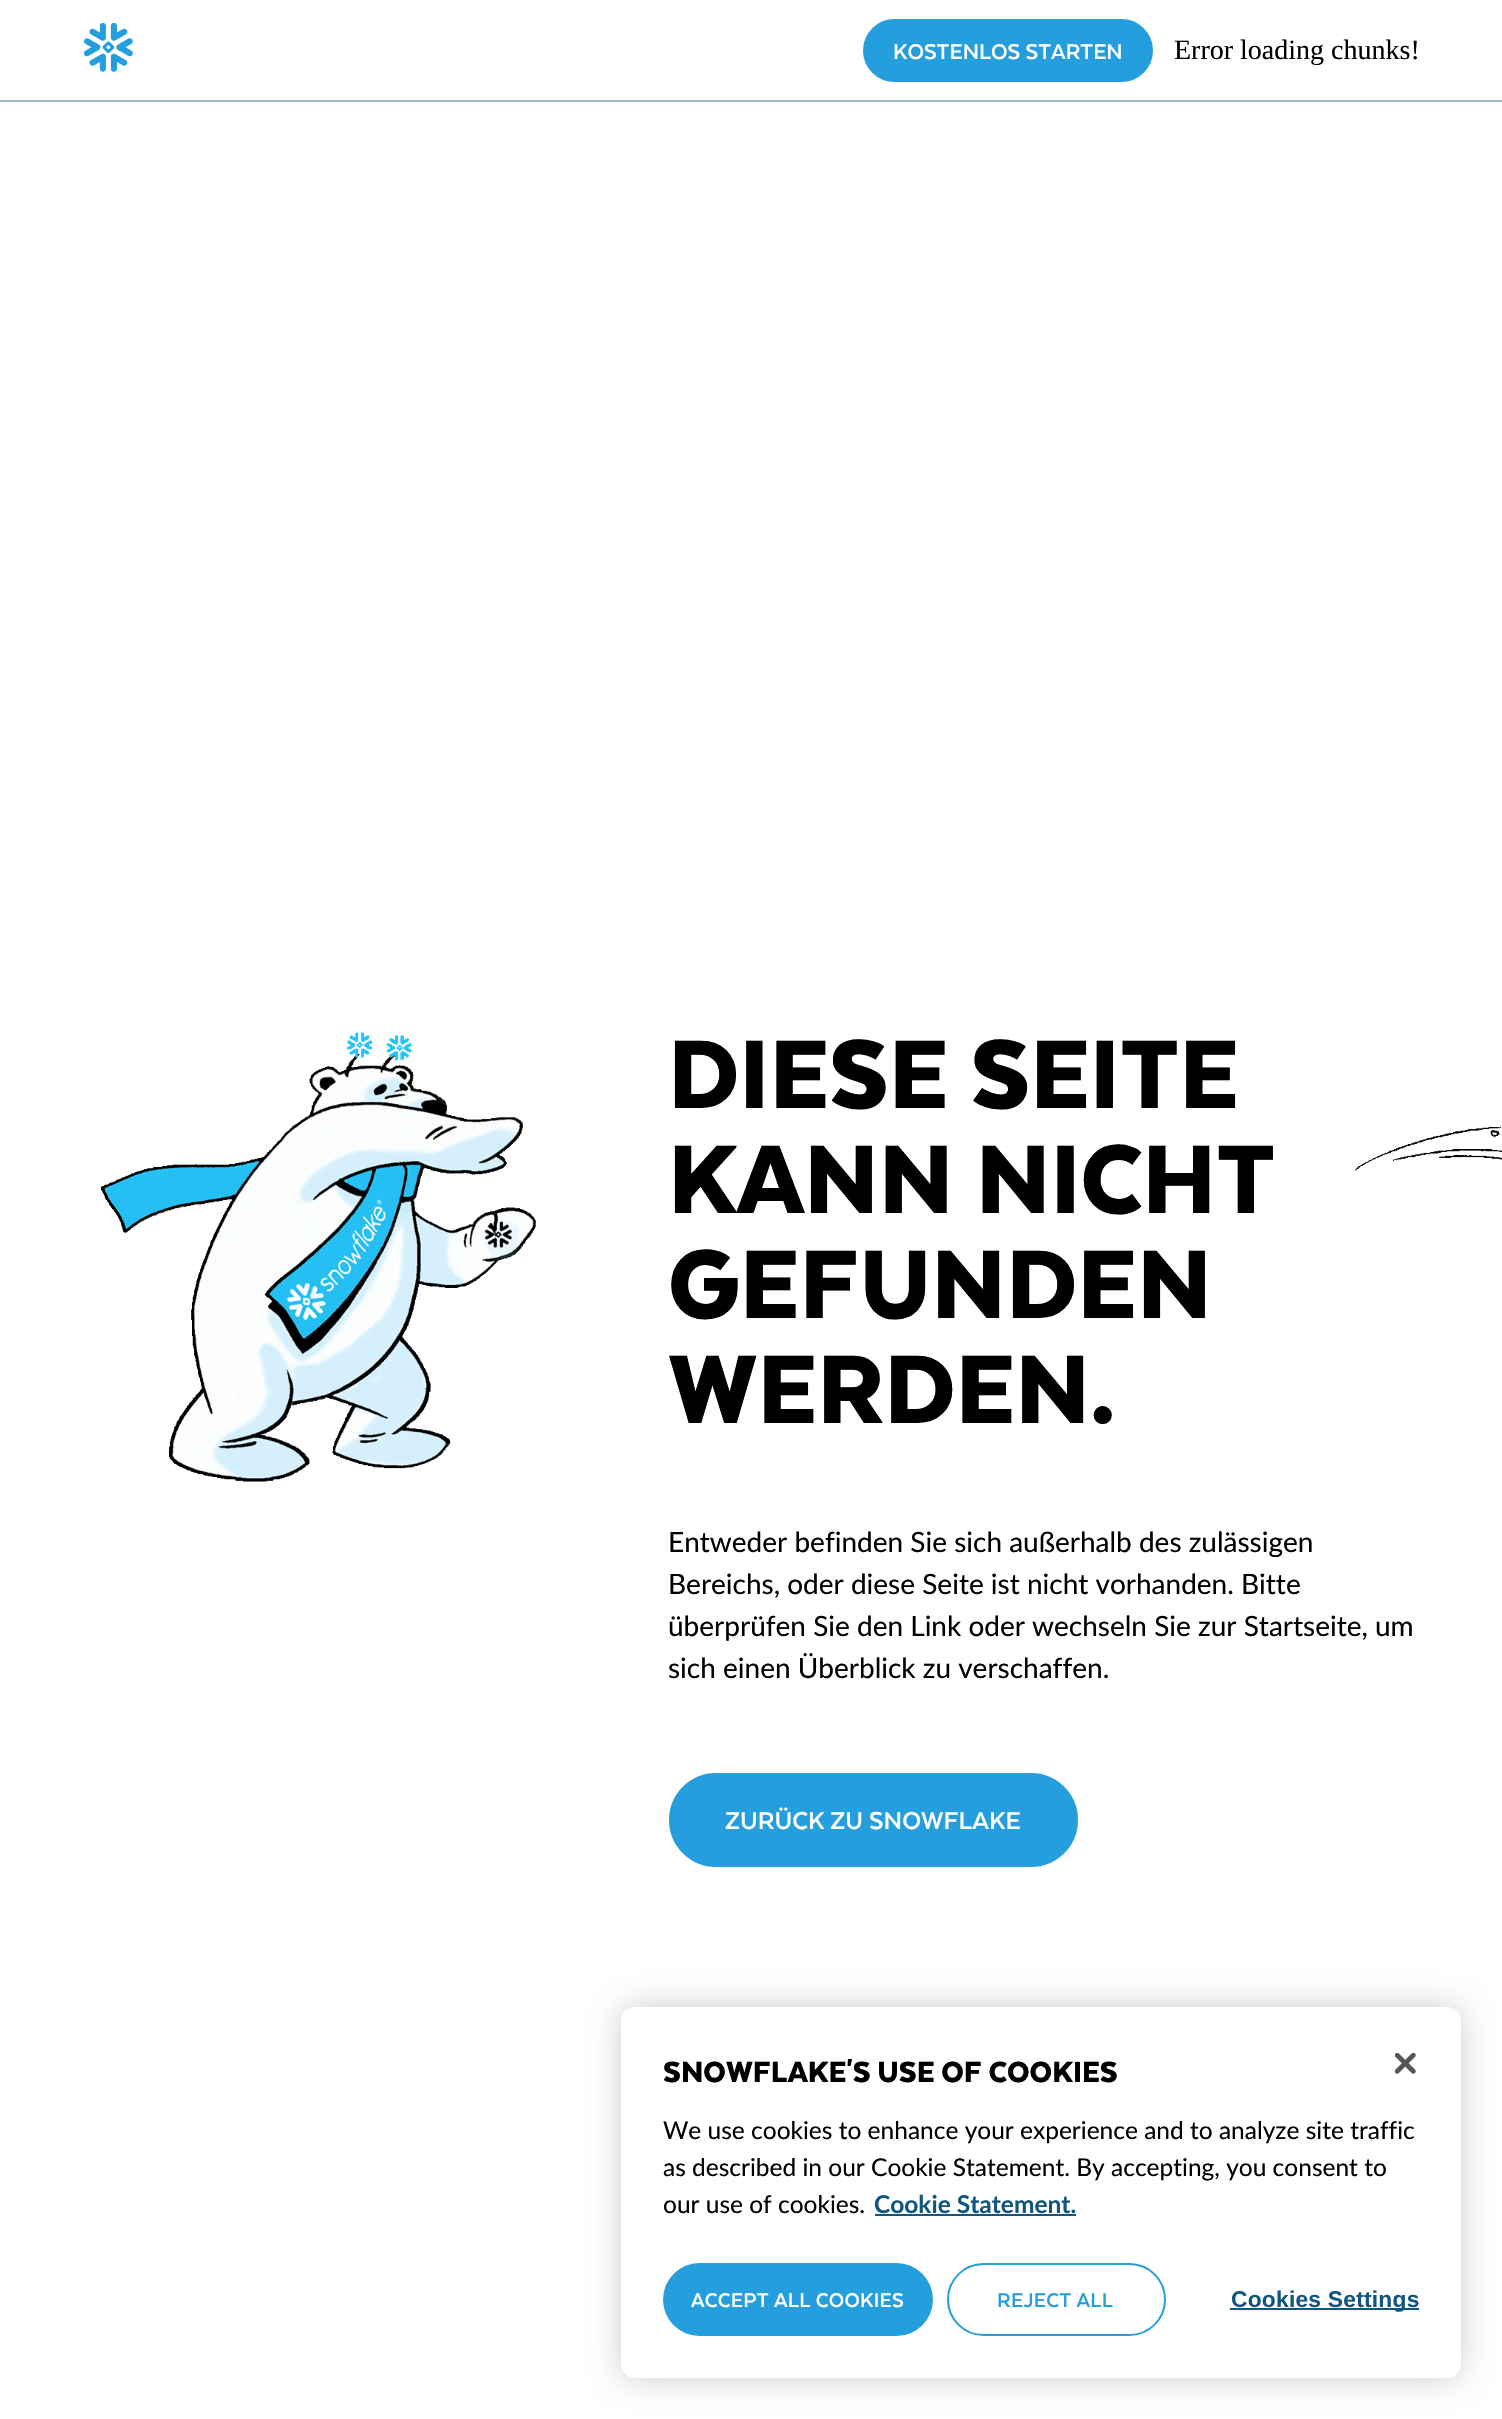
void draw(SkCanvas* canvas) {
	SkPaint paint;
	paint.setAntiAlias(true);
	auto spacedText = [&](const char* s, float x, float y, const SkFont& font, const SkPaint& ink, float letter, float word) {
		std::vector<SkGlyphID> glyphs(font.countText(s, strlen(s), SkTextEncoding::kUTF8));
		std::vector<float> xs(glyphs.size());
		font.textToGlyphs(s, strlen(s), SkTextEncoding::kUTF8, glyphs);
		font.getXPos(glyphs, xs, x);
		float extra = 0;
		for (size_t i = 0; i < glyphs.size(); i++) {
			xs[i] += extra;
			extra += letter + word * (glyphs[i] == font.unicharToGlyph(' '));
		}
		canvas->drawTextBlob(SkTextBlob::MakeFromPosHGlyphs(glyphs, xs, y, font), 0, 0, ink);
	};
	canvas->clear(0xffffffff);
	paint.setColor(0xffa0bbcc);
	canvas->drawRect(SkRect::MakeXYWH(0, 100, 1502, 2), paint);
	canvas->drawImageRect(SkImages::DeferredFromEncodedData(SkData::MakeFromFileName("img1.png")), SkRect::MakeXYWH(84, 23, 49, 49), SkSamplingOptions());
	paint.setColor(0xff249edc);
	canvas->drawRoundRect(SkRect::MakeXYWH(864, 20, 288, 61), 30.5, 30.5, paint);
	paint.setStroke(true);
	paint.setStrokeWidth(2);
	canvas->drawRoundRect(SkRect::MakeXYWH(864, 20, 288, 61), 30.5, 30.5, paint);
	SkFont f1(fontMgr->matchFamilyStyle("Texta", SkFontStyle::Bold()), 24.5);
	f1.setSubpixel(true);
	paint.setStroke(false);
	paint.setColor(0xffffffff);
	canvas->drawString("KOSTENLOS STARTEN", 893, 59, f1, paint);
	SkFont f2(fontMgr->matchFamilyStyle("Liberation Serif", SkFontStyle::Normal()), 28);
	f2.setSubpixel(true);
	paint.setColor(0xff000000);
	canvas->drawString("Error loading chunks!", 1174, 59, f2, paint);
	canvas->drawImageRect(SkImages::DeferredFromEncodedData(SkData::MakeFromFileName("img2.png")), SkRect::MakeXYWH(101, 1032, 1401, 450), SkSamplingOptions());
	SkFont f3(fontMgr->matchFamilyStyle("Texta", SkFontStyle(900, SkFontStyle::kNormal_Width, SkFontStyle::kUpright_Slant)), 112);
	f3.setSubpixel(true);
	canvas->drawString("DIESE SEITE", 668, 1108, f3, paint);
	canvas->drawString("KANN NICHT", 668, 1213, f3, paint);
	canvas->drawString("GEFUNDEN", 668, 1318, f3, paint);
	canvas->drawString("WERDEN.", 668, 1423, f3, paint);
	SkFont f4(fontMgr->matchFamilyStyle("Lato", SkFontStyle::Normal()), 28);
	f4.setSubpixel(true);
	canvas->drawString("Entweder befinden Sie sich außerhalb des zulässigen", 668, 1552, f4, paint);
	canvas->drawString("Bereichs, oder diese Seite ist nicht vorhanden. Bitte", 668, 1594, f4, paint);
	canvas->drawString("überprüfen Sie den Link oder wechseln Sie zur Startseite, um", 668, 1636, f4, paint);
	canvas->drawString("sich einen Überblick zu verschaffen.", 668, 1678, f4, paint);
	paint.setColor(0xff249edc);
	canvas->drawRoundRect(SkRect::MakeXYWH(670, 1774, 407, 92), 46, 46, paint);
	paint.setStroke(true);
	canvas->drawRoundRect(SkRect::MakeXYWH(670, 1774, 407, 92), 46, 46, paint);
	SkFont f5(fontMgr->matchFamilyStyle("Texta", SkFontStyle::Bold()), 28);
	f5.setSubpixel(true);
	paint.setStroke(false);
	paint.setColor(0xffffffff);
	canvas->drawString("ZURÜCK ZU SNOWFLAKE", 725, 1829, f5, paint);
	paint.setColor(0x33000000);
	paint.setMaskFilter(SkMaskFilter::MakeBlur(kNormal_SkBlurStyle, 16));
	canvas->drawRoundRect(SkRect::MakeXYWH(621, 2007, 840, 371), 14, 14, paint);
	paint.setMaskFilter(nullptr);
	paint.setColor(0xffffffff);
	canvas->drawRoundRect(SkRect::MakeXYWH(621, 2007, 840, 371), 14, 14, paint);
	canvas->drawImageRect(SkImages::DeferredFromEncodedData(SkData::MakeFromFileName("img3.png")), SkRect::MakeXYWH(1395, 2053, 21, 21), SkSamplingOptions());
	SkFont f6(fontMgr->matchFamilyStyle("Texta", SkFontStyle(900, SkFontStyle::kNormal_Width, SkFontStyle::kUpright_Slant)), 33.6);
	f6.setSubpixel(true);
	paint.setColor(0xff000000);
	canvas->drawString("SNOWFLAKE'S USE OF COOKIES", 663, 2082, f6, paint);
	SkFont f7(fontMgr->matchFamilyStyle("Lato", SkFontStyle::Normal()), 24.5);
	f7.setSubpixel(true);
	canvas->drawString("We use cookies to enhance your experience and to analyze site traffic", 663, 2139, f7, paint);
	canvas->drawString("as described in our Cookie Statement. By accepting, you consent to", 663, 2176, f7, paint);
	canvas->drawString("our use of cookies.", 663, 2213, f7, paint);
	SkFont f8(fontMgr->matchFamilyStyle("Lato", SkFontStyle::Bold()), 24.5);
	f8.setSubpixel(true);
	paint.setColor(0xff11567f);
	canvas->drawString("Cookie Statement.", 874, 2213, f8, paint);
	canvas->drawRect(SkRect::MakeXYWH(875, 2214, 201, 2), paint);
	paint.setColor(0xff249edc);
	canvas->drawRoundRect(SkRect::MakeXYWH(663, 2263, 270, 73), 36.5, 36.5, paint);
	SkFont f9(fontMgr->matchFamilyStyle("Texta", SkFontStyle::Bold()), 22.75);
	f9.setSubpixel(true);
	paint.setColor(0xffffffff);
	spacedText("ACCEPT ALL COOKIES", 691, 2307, f9, paint, 0.25, 0);
	paint.setStroke(true);
	paint.setColor(0xff249edc);
	canvas->drawRoundRect(SkRect::MakeXYWH(948, 2264, 217, 71), 35.5, 35.5, paint);
	paint.setStroke(false);
	spacedText("REJECT ALL", 997, 2307, f9, paint, 0.25, 0);
	paint.setColor(0xff11567f);
	canvas->drawRect(SkRect::MakeXYWH(1230, 2308, 189, 2), paint);
	SkFont f10(fontMgr->matchFamilyStyle("Liberation Sans", SkFontStyle::Bold()), 22.75);
	f10.setSubpixel(true);
	spacedText("Cookies Settings", 1231, 2307, f10, paint, 0.25, 0);
}
